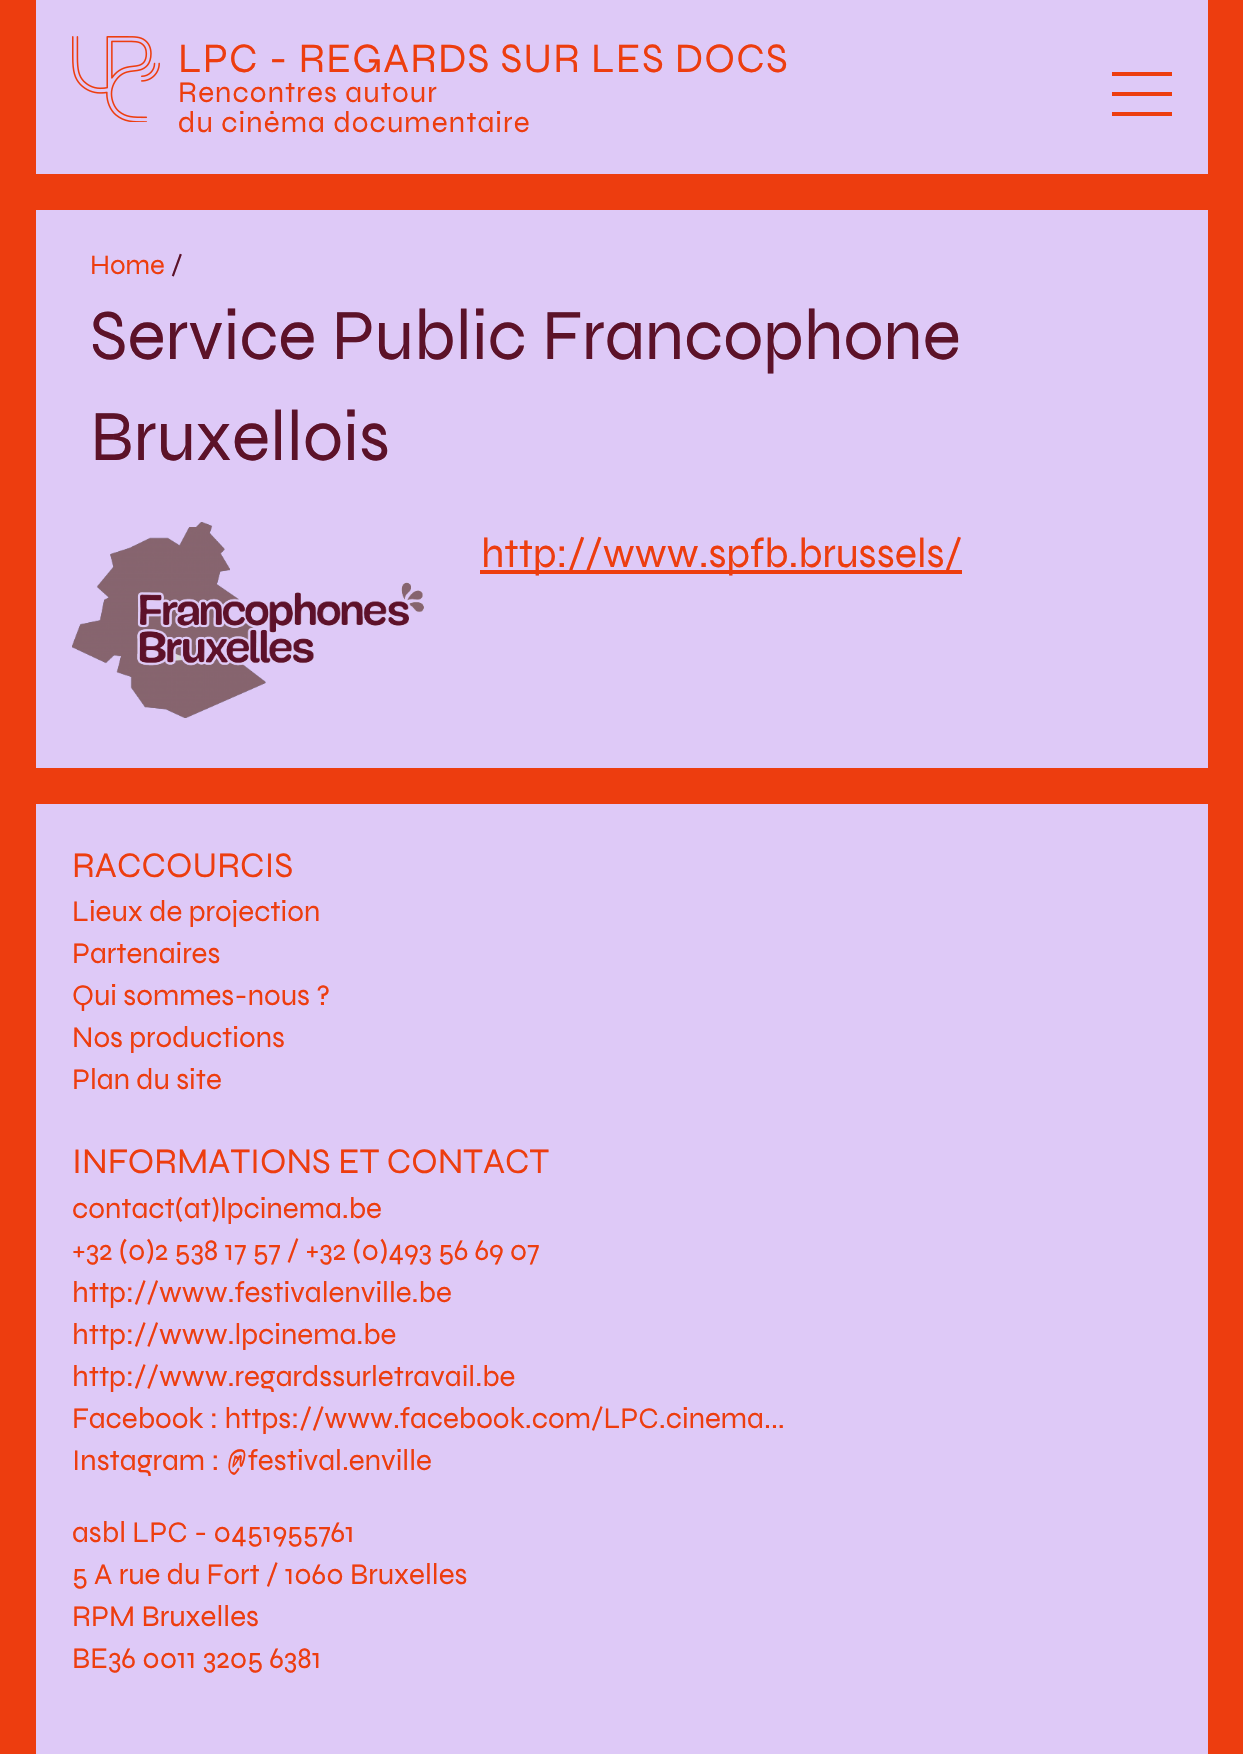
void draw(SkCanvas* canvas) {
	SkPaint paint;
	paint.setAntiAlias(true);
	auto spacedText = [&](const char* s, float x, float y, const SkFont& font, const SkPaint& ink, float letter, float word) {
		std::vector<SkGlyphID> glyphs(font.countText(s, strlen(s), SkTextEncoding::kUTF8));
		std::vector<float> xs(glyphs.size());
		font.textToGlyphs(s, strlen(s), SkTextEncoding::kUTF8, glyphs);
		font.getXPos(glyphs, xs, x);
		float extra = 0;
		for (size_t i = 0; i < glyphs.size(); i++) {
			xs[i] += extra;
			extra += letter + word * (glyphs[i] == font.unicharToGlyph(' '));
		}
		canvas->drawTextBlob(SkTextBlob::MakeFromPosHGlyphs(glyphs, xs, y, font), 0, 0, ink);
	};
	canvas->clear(0xffed3d0f);
	paint.setColor(0xffdec9f7);
	canvas->drawRect(SkRect::MakeXYWH(36, 0, 1172, 174), paint);
	canvas->drawImageRect(SkImages::DeferredFromEncodedData(SkData::MakeFromFileName("img1.png")), SkRect::MakeXYWH(72, 36, 88, 86), SkSamplingOptions());
	SkFont f1(fontMgr->matchFamilyStyle("Syne", SkFontStyle::Normal()), 42);
	f1.setSubpixel(true);
	paint.setColor(0xffed3d0f);
	spacedText("LPC - REGARDS SUR LES DOCS", 178, 72, f1, paint, 1.1, 0);
	SkFont f2(fontMgr->matchFamilyStyle("Syne", SkFontStyle::Normal()), 30);
	f2.setSubpixel(true);
	spacedText("Rencontres autour", 178, 102, f2, paint, 1.1, 0);
	spacedText("du cinéma documentaire", 178, 132, f2, paint, 1.1, 0);
	canvas->drawRect(SkRect::MakeXYWH(1112, 72, 60, 4), paint);
	canvas->drawRect(SkRect::MakeXYWH(1112, 92, 60, 4), paint);
	canvas->drawRect(SkRect::MakeXYWH(1112, 112, 60, 4), paint);
	paint.setColor(0xffdec9f7);
	canvas->drawRect(SkRect::MakeXYWH(36, 210, 1172, 558), paint);
	SkFont f3(fontMgr->matchFamilyStyle("Syne", SkFontStyle::Normal()), 28);
	f3.setSubpixel(true);
	paint.setColor(0xffed3d0f);
	canvas->drawString("Home", 90, 274, f3, paint);
	paint.setColor(0xff5c1229);
	canvas->drawString("/", 171, 274, f3, paint);
	SkFont f4(fontMgr->matchFamilyStyle("Syne", SkFontStyle::Normal()), 72);
	f4.setSubpixel(true);
	canvas->drawString("Service Public Francophone", 90, 359, f4, paint);
	canvas->drawString("Bruxellois", 90, 460, f4, paint);
	canvas->drawImageRect(SkImages::DeferredFromEncodedData(SkData::MakeFromFileName("img2.png")), SkRect::MakeXYWH(72, 522, 352, 196), SkSamplingOptions());
	paint.setColor(0xffed3d0f);
	canvas->drawRect(SkRect::MakeXYWH(480, 570, 482, 4), paint);
	canvas->drawString("http://www.spfb.brussels/", 481, 567, f1, paint);
	paint.setColor(0xffdec9f7);
	canvas->drawRect(SkRect::MakeXYWH(36, 804, 1172, 950), paint);
	SkFont f5(fontMgr->matchFamilyStyle("Syne", SkFontStyle::Normal()), 36);
	f5.setSubpixel(true);
	paint.setColor(0xffed3d0f);
	canvas->drawString("RACCOURCIS", 72, 877, f5, paint);
	canvas->drawString("Lieux de projection", 72, 921, f2, paint);
	canvas->drawString("Partenaires", 72, 963, f2, paint);
	canvas->drawString("Qui sommes-nous ?", 72, 1005, f2, paint);
	canvas->drawString("Nos productions", 72, 1047, f2, paint);
	canvas->drawString("Plan du site", 72, 1089, f2, paint);
	canvas->drawString("INFORMATIONS ET CONTACT", 72, 1173, f5, paint);
	canvas->drawString("contact(at)lpcinema.be", 72, 1218, f2, paint);
	canvas->drawString("+32 (0)2 538 17 57 / +32 (0)493 56 69 07", 72, 1260, f2, paint);
	canvas->drawString("http://www.festivalenville.be", 72, 1302, f2, paint);
	canvas->drawString("http://www.lpcinema.be", 72, 1344, f2, paint);
	canvas->drawString("http://www.regardssurletravail.be", 72, 1386, f2, paint);
	canvas->drawString("Facebook : https://www.facebook.com/LPC.cinema...", 72, 1428, f2, paint);
	canvas->drawString("Instagram : @festival.enville", 72, 1470, f2, paint);
	canvas->drawString("asbl LPC - 0451955761", 72, 1542, f2, paint);
	canvas->drawString("5 A rue du Fort / 1060 Bruxelles", 72, 1584, f2, paint);
	canvas->drawString("RPM Bruxelles", 72, 1626, f2, paint);
	canvas->drawString("BE36 0011 3205 6381", 72, 1668, f2, paint);
}
